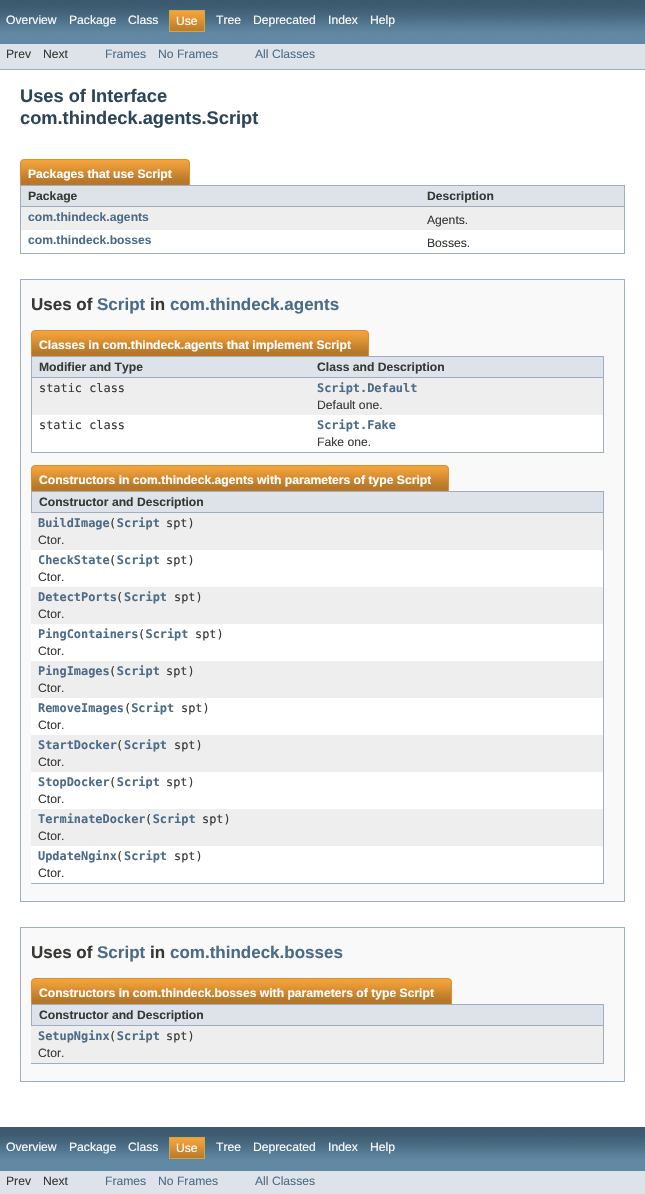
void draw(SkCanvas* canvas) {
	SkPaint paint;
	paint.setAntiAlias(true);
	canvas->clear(0xffffffff);
	canvas->drawImageRect(SkImages::DeferredFromEncodedData(SkData::MakeFromFileName("img1.png")), SkRect::MakeXYWH(0, 0, 645, 44), SkSamplingOptions());
	SkFont f1(fontMgr->matchFamilyStyle("Liberation Sans", SkFontStyle::Normal()), 12.15);
	f1.setSubpixel(true);
	paint.setColor(0xffffffff);
	canvas->drawString("Overview", 6, 24, f1, paint);
	canvas->drawString("Package", 69, 24, f1, paint);
	canvas->drawString("Class", 128, 24, f1, paint);
	canvas->drawImageRect(SkImages::DeferredFromEncodedData(SkData::MakeFromFileName("img2.png")), SkRect::MakeXYWH(170, 11, 34, 20), SkSamplingOptions());
	paint.setStroke(true);
	paint.setStrokeWidth(1);
	paint.setColor(0xffc9aa44);
	canvas->drawRect(SkRect::MakeXYWH(169.5, 10.5, 35, 21), paint);
	paint.setStroke(false);
	paint.setColor(0xffffffff);
	canvas->drawString("Use", 176, 25, f1, paint);
	canvas->drawString("Tree", 216, 24, f1, paint);
	canvas->drawString("Deprecated", 253, 24, f1, paint);
	canvas->drawString("Index", 328, 24, f1, paint);
	canvas->drawString("Help", 370, 24, f1, paint);
	paint.setColor(0xffdee3e9);
	canvas->drawRect(SkRect::MakeXYWH(0, 44, 645, 25), paint);
	paint.setColor(0xff9eadc0);
	canvas->drawRect(SkRect::MakeXYWH(0, 69, 645, 1), paint);
	paint.setColor(0xff353833);
	canvas->drawString("Prev", 6, 58, f1, paint);
	canvas->drawString("Next", 43, 58, f1, paint);
	paint.setColor(0xff4c6b87);
	canvas->drawString("Frames", 105, 58, f1, paint);
	canvas->drawString("No Frames", 158, 58, f1, paint);
	canvas->drawString("All Classes", 255, 58, f1, paint);
	SkFont f2(fontMgr->matchFamilyStyle("Liberation Sans", SkFontStyle::Bold()), 18.25);
	f2.setSubpixel(true);
	paint.setColor(0xff2c4557);
	canvas->drawString("Uses of Interface", 20, 102, f2, paint);
	canvas->drawString("com.thindeck.agents.Script", 20, 124, f2, paint);
	paint.setColor(0xff9eadc0);
	canvas->drawRect(SkRect::MakeXYWH(20, 253, 605, 1), paint);
	canvas->drawImageRect(SkImages::DeferredFromEncodedData(SkData::MakeFromFileName("img3.png")), SkRect::MakeXYWH(20, 159, 152, 26), SkSamplingOptions());
	SkFont f3(fontMgr->matchFamilyStyle("Liberation Sans", SkFontStyle::Bold()), 12.15);
	f3.setSubpixel(true);
	paint.setColor(0xffffffff);
	canvas->drawString("Packages that use Script", 28, 178, f3, paint);
	canvas->drawImageRect(SkImages::DeferredFromEncodedData(SkData::MakeFromFileName("img4.png")), SkRect::MakeXYWH(172, 159, 18, 26), SkSamplingOptions());
	paint.setColor(0xffdee3e9);
	canvas->drawRect(SkRect::MakeXYWH(21, 186, 603, 20), paint);
	paint.setColor(0xff9eadc0);
	canvas->drawRect(SkRect::MakeXYWH(20, 185, 605, 1), paint);
	canvas->drawRect(SkRect::MakeXYWH(20, 206, 400, 1), paint);
	canvas->drawRect(SkRect::MakeXYWH(20, 185, 1, 68), paint);
	paint.setColor(0xff353833);
	canvas->drawString("Package", 28, 200, f3, paint);
	paint.setColor(0xff9eadc0);
	canvas->drawRect(SkRect::MakeXYWH(624, 185, 1, 68), paint);
	canvas->drawRect(SkRect::MakeXYWH(420, 206, 205, 1), paint);
	paint.setColor(0xff353833);
	canvas->drawString("Description", 427, 200, f3, paint);
	paint.setColor(0xffeeeeef);
	canvas->drawRect(SkRect::MakeXYWH(21, 207, 603, 23), paint);
	paint.setColor(0xff4c6b87);
	canvas->drawString("com.thindeck.agents", 28, 221, f3, paint);
	paint.setColor(0xff353833);
	canvas->drawString("Agents.", 427, 224, f1, paint);
	paint.setColor(0xff4c6b87);
	canvas->drawString("com.thindeck.bosses", 28, 244, f3, paint);
	paint.setColor(0xff353833);
	canvas->drawString("Bosses.", 427, 247, f1, paint);
	paint.setColor(0xfff9f9f9);
	canvas->drawRect(SkRect::MakeXYWH(20.5, 279.5, 604, 622), paint);
	paint.setStroke(true);
	paint.setColor(0xff9eadc0);
	canvas->drawRect(SkRect::MakeXYWH(20.5, 279.5, 604, 622), paint);
	SkFont f4(fontMgr->matchFamilyStyle("Liberation Sans", SkFontStyle::Bold()), 17);
	f4.setSubpixel(true);
	paint.setStroke(false);
	paint.setColor(0xff353833);
	canvas->drawString("Uses of", 31, 310, f4, paint);
	paint.setColor(0xff4c6b87);
	canvas->drawString("Script", 97, 310, f4, paint);
	paint.setColor(0xff353833);
	canvas->drawString("in", 150, 310, f4, paint);
	paint.setColor(0xff4c6b87);
	canvas->drawString("com.thindeck.agents", 170, 310, f4, paint);
	paint.setColor(0xff9eadc0);
	canvas->drawRect(SkRect::MakeXYWH(31, 452, 573, 1), paint);
	canvas->drawImageRect(SkImages::DeferredFromEncodedData(SkData::MakeFromFileName("img5.png")), SkRect::MakeXYWH(31, 330, 320, 26), SkSamplingOptions());
	paint.setColor(0xffffffff);
	canvas->drawString("Classes in com.thindeck.agents that implement Script", 39, 349, f3, paint);
	canvas->drawImageRect(SkImages::DeferredFromEncodedData(SkData::MakeFromFileName("img4.png")), SkRect::MakeXYWH(351, 330, 18, 26), SkSamplingOptions());
	paint.setColor(0xffdee3e9);
	canvas->drawRect(SkRect::MakeXYWH(32, 357, 571, 20), paint);
	paint.setColor(0xff9eadc0);
	canvas->drawRect(SkRect::MakeXYWH(31, 356, 573, 1), paint);
	canvas->drawRect(SkRect::MakeXYWH(31, 377, 279, 1), paint);
	canvas->drawRect(SkRect::MakeXYWH(31, 356, 1, 96), paint);
	paint.setColor(0xff353833);
	canvas->drawString("Modifier and Type", 39, 371, f3, paint);
	paint.setColor(0xff9eadc0);
	canvas->drawRect(SkRect::MakeXYWH(603, 356, 1, 96), paint);
	canvas->drawRect(SkRect::MakeXYWH(310, 377, 294, 1), paint);
	paint.setColor(0xff353833);
	canvas->drawString("Class and Description", 317, 371, f3, paint);
	paint.setColor(0xffeeeeef);
	canvas->drawRect(SkRect::MakeXYWH(32, 378, 571, 37), paint);
	SkFont f5(fontMgr->matchFamilyStyle("DejaVu Sans Mono", SkFontStyle::Normal()), 11.9);
	f5.setSubpixel(true);
	paint.setColor(0xff353833);
	canvas->drawString("static class", 39, 392, f5, paint);
	SkFont f6(fontMgr->matchFamilyStyle("DejaVu Sans Mono", SkFontStyle::Bold()), 11.9);
	f6.setSubpixel(true);
	paint.setColor(0xff4c6b87);
	canvas->drawString("Script.Default", 317, 392, f6, paint);
	paint.setColor(0xff353833);
	canvas->drawString("Default one.", 317, 409, f1, paint);
	paint.setColor(0xffffffff);
	canvas->drawRect(SkRect::MakeXYWH(32, 415, 571, 37), paint);
	paint.setColor(0xff353833);
	canvas->drawString("static class", 39, 429, f5, paint);
	paint.setColor(0xff4c6b87);
	canvas->drawString("Script.Fake", 317, 429, f6, paint);
	paint.setColor(0xff353833);
	canvas->drawString("Fake one.", 317, 446, f1, paint);
	paint.setColor(0xff9eadc0);
	canvas->drawRect(SkRect::MakeXYWH(31, 883, 573, 1), paint);
	canvas->drawImageRect(SkImages::DeferredFromEncodedData(SkData::MakeFromFileName("img6.png")), SkRect::MakeXYWH(31, 465, 400, 26), SkSamplingOptions());
	paint.setColor(0xffffffff);
	canvas->drawString("Constructors in com.thindeck.agents with parameters of type Script", 39, 484, f3, paint);
	canvas->drawImageRect(SkImages::DeferredFromEncodedData(SkData::MakeFromFileName("img4.png")), SkRect::MakeXYWH(431, 465, 18, 26), SkSamplingOptions());
	paint.setColor(0xffdee3e9);
	canvas->drawRect(SkRect::MakeXYWH(31.5, 491.5, 572, 21), paint);
	paint.setStroke(true);
	paint.setColor(0xff9eadc0);
	canvas->drawRect(SkRect::MakeXYWH(31.5, 491.5, 572, 21), paint);
	paint.setStroke(false);
	paint.setColor(0xff353833);
	canvas->drawString("Constructor and Description", 39, 506, f3, paint);
	paint.setColor(0xffeeeeef);
	canvas->drawRect(SkRect::MakeXYWH(31, 513, 572, 37), paint);
	paint.setColor(0xff9eadc0);
	canvas->drawRect(SkRect::MakeXYWH(603, 513, 1, 370), paint);
	paint.setColor(0xff4c6b87);
	canvas->drawString("BuildImage Script", 38, 527, f6, paint);
	paint.setColor(0xff353833);
	canvas->drawString("(", 109, 527, f5, paint);
	canvas->drawString("spt)", 166, 527, f5, paint);
	canvas->drawString("Ctor.", 38, 544, f1, paint);
	paint.setColor(0xffffffff);
	canvas->drawRect(SkRect::MakeXYWH(31, 550, 572, 37), paint);
	paint.setColor(0xff4c6b87);
	canvas->drawString("CheckState Script", 38, 564, f6, paint);
	paint.setColor(0xff353833);
	canvas->drawString("(", 109, 564, f5, paint);
	canvas->drawString("spt)", 166, 564, f5, paint);
	canvas->drawString("Ctor.", 38, 581, f1, paint);
	paint.setColor(0xffeeeeef);
	canvas->drawRect(SkRect::MakeXYWH(31, 587, 572, 37), paint);
	paint.setColor(0xff4c6b87);
	canvas->drawString("DetectPorts Script", 38, 601, f6, paint);
	paint.setColor(0xff353833);
	canvas->drawString("(", 116, 601, f5, paint);
	canvas->drawString("spt)", 174, 601, f5, paint);
	canvas->drawString("Ctor.", 38, 618, f1, paint);
	paint.setColor(0xffffffff);
	canvas->drawRect(SkRect::MakeXYWH(31, 624, 572, 37), paint);
	paint.setColor(0xff4c6b87);
	canvas->drawString("PingContainers Script", 38, 638, f6, paint);
	paint.setColor(0xff353833);
	canvas->drawString("(", 138, 638, f5, paint);
	canvas->drawString("spt)", 195, 638, f5, paint);
	canvas->drawString("Ctor.", 38, 655, f1, paint);
	paint.setColor(0xffeeeeef);
	canvas->drawRect(SkRect::MakeXYWH(31, 661, 572, 37), paint);
	paint.setColor(0xff4c6b87);
	canvas->drawString("PingImages Script", 38, 675, f6, paint);
	paint.setColor(0xff353833);
	canvas->drawString("(", 109, 675, f5, paint);
	canvas->drawString("spt)", 166, 675, f5, paint);
	canvas->drawString("Ctor.", 38, 692, f1, paint);
	paint.setColor(0xffffffff);
	canvas->drawRect(SkRect::MakeXYWH(31, 698, 572, 37), paint);
	paint.setColor(0xff4c6b87);
	canvas->drawString("RemoveImages Script", 38, 712, f6, paint);
	paint.setColor(0xff353833);
	canvas->drawString("(", 124, 712, f5, paint);
	canvas->drawString("spt)", 181, 712, f5, paint);
	canvas->drawString("Ctor.", 38, 729, f1, paint);
	paint.setColor(0xffeeeeef);
	canvas->drawRect(SkRect::MakeXYWH(31, 735, 572, 37), paint);
	paint.setColor(0xff4c6b87);
	canvas->drawString("StartDocker Script", 38, 749, f6, paint);
	paint.setColor(0xff353833);
	canvas->drawString("(", 116, 749, f5, paint);
	canvas->drawString("spt)", 174, 749, f5, paint);
	canvas->drawString("Ctor.", 38, 766, f1, paint);
	paint.setColor(0xffffffff);
	canvas->drawRect(SkRect::MakeXYWH(31, 772, 572, 37), paint);
	paint.setColor(0xff4c6b87);
	canvas->drawString("StopDocker Script", 38, 786, f6, paint);
	paint.setColor(0xff353833);
	canvas->drawString("(", 109, 786, f5, paint);
	canvas->drawString("spt)", 166, 786, f5, paint);
	canvas->drawString("Ctor.", 38, 803, f1, paint);
	paint.setColor(0xffeeeeef);
	canvas->drawRect(SkRect::MakeXYWH(31, 809, 572, 37), paint);
	paint.setColor(0xff4c6b87);
	canvas->drawString("TerminateDocker Script", 38, 823, f6, paint);
	paint.setColor(0xff353833);
	canvas->drawString("(", 145, 823, f5, paint);
	canvas->drawString("spt)", 202, 823, f5, paint);
	canvas->drawString("Ctor.", 38, 840, f1, paint);
	paint.setColor(0xffffffff);
	canvas->drawRect(SkRect::MakeXYWH(31, 846, 572, 37), paint);
	paint.setColor(0xff4c6b87);
	canvas->drawString("UpdateNginx Script", 38, 860, f6, paint);
	paint.setColor(0xff353833);
	canvas->drawString("(", 116, 860, f5, paint);
	canvas->drawString("spt)", 174, 860, f5, paint);
	canvas->drawString("Ctor.", 38, 877, f1, paint);
	paint.setColor(0xfff9f9f9);
	canvas->drawRect(SkRect::MakeXYWH(20.5, 927.5, 604, 154), paint);
	paint.setStroke(true);
	paint.setColor(0xff9eadc0);
	canvas->drawRect(SkRect::MakeXYWH(20.5, 927.5, 604, 154), paint);
	paint.setStroke(false);
	paint.setColor(0xff353833);
	canvas->drawString("Uses of", 31, 958, f4, paint);
	paint.setColor(0xff4c6b87);
	canvas->drawString("Script", 97, 958, f4, paint);
	paint.setColor(0xff353833);
	canvas->drawString("in", 150, 958, f4, paint);
	paint.setColor(0xff4c6b87);
	canvas->drawString("com.thindeck.bosses", 170, 958, f4, paint);
	paint.setColor(0xff9eadc0);
	canvas->drawRect(SkRect::MakeXYWH(31, 1063, 573, 1), paint);
	canvas->drawImageRect(SkImages::DeferredFromEncodedData(SkData::MakeFromFileName("img7.png")), SkRect::MakeXYWH(31, 978, 403, 26), SkSamplingOptions());
	paint.setColor(0xffffffff);
	canvas->drawString("Constructors in com.thindeck.bosses with parameters of type Script", 39, 997, f3, paint);
	canvas->drawImageRect(SkImages::DeferredFromEncodedData(SkData::MakeFromFileName("img4.png")), SkRect::MakeXYWH(434, 978, 18, 26), SkSamplingOptions());
	paint.setColor(0xffdee3e9);
	canvas->drawRect(SkRect::MakeXYWH(31.5, 1004.5, 572, 21), paint);
	paint.setStroke(true);
	paint.setColor(0xff9eadc0);
	canvas->drawRect(SkRect::MakeXYWH(31.5, 1004.5, 572, 21), paint);
	paint.setStroke(false);
	paint.setColor(0xff353833);
	canvas->drawString("Constructor and Description", 39, 1019, f3, paint);
	paint.setColor(0xffeeeeef);
	canvas->drawRect(SkRect::MakeXYWH(31, 1026, 572, 37), paint);
	paint.setColor(0xff9eadc0);
	canvas->drawRect(SkRect::MakeXYWH(603, 1026, 1, 37), paint);
	paint.setColor(0xff4c6b87);
	canvas->drawString("SetupNginx Script", 38, 1040, f6, paint);
	paint.setColor(0xff353833);
	canvas->drawString("(", 109, 1040, f5, paint);
	canvas->drawString("spt)", 166, 1040, f5, paint);
	canvas->drawString("Ctor.", 38, 1057, f1, paint);
	canvas->drawImageRect(SkImages::DeferredFromEncodedData(SkData::MakeFromFileName("img1.png")), SkRect::MakeXYWH(0, 1127, 645, 44), SkSamplingOptions());
	paint.setColor(0xffffffff);
	canvas->drawString("Overview", 6, 1151, f1, paint);
	canvas->drawString("Package", 69, 1151, f1, paint);
	canvas->drawString("Class", 128, 1151, f1, paint);
	canvas->drawImageRect(SkImages::DeferredFromEncodedData(SkData::MakeFromFileName("img2.png")), SkRect::MakeXYWH(170, 1138, 34, 20), SkSamplingOptions());
	paint.setStroke(true);
	paint.setColor(0xffc9aa44);
	canvas->drawRect(SkRect::MakeXYWH(169.5, 1137.5, 35, 21), paint);
	paint.setStroke(false);
	paint.setColor(0xffffffff);
	canvas->drawString("Use", 176, 1152, f1, paint);
	canvas->drawString("Tree", 216, 1151, f1, paint);
	canvas->drawString("Deprecated", 253, 1151, f1, paint);
	canvas->drawString("Index", 328, 1151, f1, paint);
	canvas->drawString("Help", 370, 1151, f1, paint);
	paint.setColor(0xffdee3e9);
	canvas->drawRect(SkRect::MakeXYWH(0, 1171, 645, 23), paint);
	paint.setColor(0xff353833);
	canvas->drawString("Prev", 6, 1185, f1, paint);
	canvas->drawString("Next", 43, 1185, f1, paint);
	paint.setColor(0xff4c6b87);
	canvas->drawString("Frames", 105, 1185, f1, paint);
	canvas->drawString("No Frames", 158, 1185, f1, paint);
	canvas->drawString("All Classes", 255, 1185, f1, paint);
}
